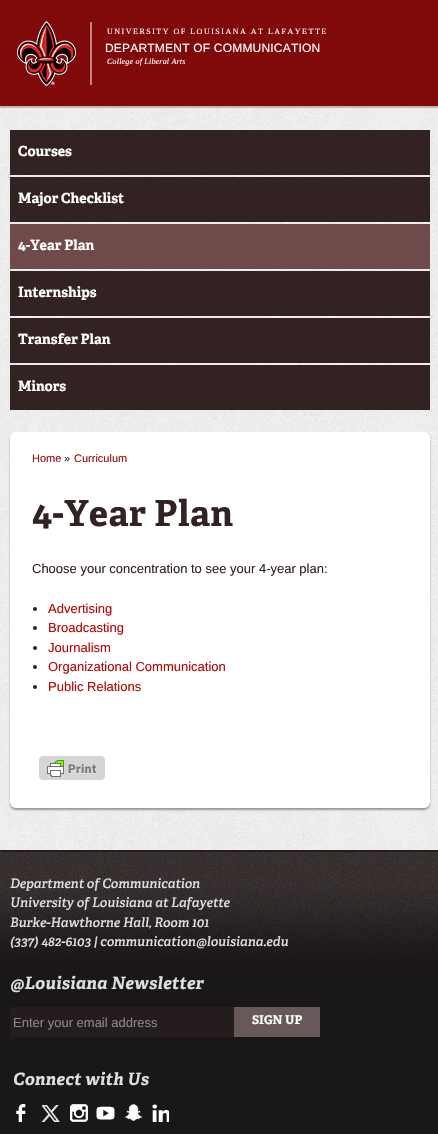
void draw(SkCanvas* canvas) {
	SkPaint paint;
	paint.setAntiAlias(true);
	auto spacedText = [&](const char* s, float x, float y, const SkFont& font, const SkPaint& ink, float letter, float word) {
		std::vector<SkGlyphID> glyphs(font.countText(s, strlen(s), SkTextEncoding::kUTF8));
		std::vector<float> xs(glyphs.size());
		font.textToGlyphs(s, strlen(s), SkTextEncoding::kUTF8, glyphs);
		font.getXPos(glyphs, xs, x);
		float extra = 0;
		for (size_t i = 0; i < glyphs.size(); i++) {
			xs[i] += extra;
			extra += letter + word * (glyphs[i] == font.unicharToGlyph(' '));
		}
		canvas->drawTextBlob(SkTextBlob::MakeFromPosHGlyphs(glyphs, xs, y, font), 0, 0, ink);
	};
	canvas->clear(0xff191719);
	canvas->drawImageRect(SkImages::DeferredFromEncodedData(SkData::MakeFromFileName("img1.png")), SkRect::MakeXYWH(0, 108, 438, 742), SkSamplingOptions());
	paint.setColor(0xff800909);
	canvas->drawRect(SkRect::MakeXYWH(0, 0, 438, 106), paint);
	paint.setColor(0xffbdb9b9);
	canvas->drawRect(SkRect::MakeXYWH(0, 106, 438, 2), paint);
	canvas->drawImageRect(SkImages::DeferredFromEncodedData(SkData::MakeFromFileName("img2.png")), SkRect::MakeXYWH(17, 21, 75, 65), SkSamplingOptions());
	SkFont f1(fontMgr->matchFamilyStyle("Liberation Serif", SkFontStyle::Normal()), 8);
	f1.setSubpixel(true);
	paint.setColor(0xffffffff);
	spacedText("UNIVERSITY OF LOUISIANA AT LAFAYETTE", 107, 34, f1, paint, 1.5, 0);
	SkFont f2(fontMgr->matchFamilyStyle("Liberation Sans", SkFontStyle::Normal()), 12);
	f2.setSubpixel(true);
	spacedText("DEPARTMENT OF COMMUNICATION", 105, 52, f2, paint, 0.2, 0);
	SkFont f3(fontMgr->matchFamilyStyle("Liberation Serif", SkFontStyle::Italic()), 8);
	f3.setSubpixel(true);
	spacedText("College of Liberal Arts", 107, 64, f3, paint, 0.2, 0);
	paint.setColor(0xff332222);
	canvas->drawRect(SkRect::MakeXYWH(10, 130, 420, 45), paint);
	SkFont f4(fontMgr->matchFamilyStyle("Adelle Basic", SkFontStyle::Bold()), 14);
	f4.setSubpixel(true);
	paint.setColor(0xffffffff);
	canvas->drawString("Courses", 18, 156, f4, paint);
	paint.setColor(0xff332222);
	canvas->drawRect(SkRect::MakeXYWH(10, 177, 420, 45), paint);
	paint.setColor(0xffffffff);
	canvas->drawString("Major Checklist", 18, 203, f4, paint);
	paint.setColor(0xff6f4a4a);
	canvas->drawRect(SkRect::MakeXYWH(10, 224, 420, 45), paint);
	paint.setColor(0xffffffff);
	canvas->drawString("4-Year Plan", 18, 250, f4, paint);
	paint.setColor(0xff332222);
	canvas->drawRect(SkRect::MakeXYWH(10, 271, 420, 45), paint);
	paint.setColor(0xffffffff);
	canvas->drawString("Internships", 18, 297, f4, paint);
	paint.setColor(0xff332222);
	canvas->drawRect(SkRect::MakeXYWH(10, 318, 420, 45), paint);
	paint.setColor(0xffffffff);
	canvas->drawString("Transfer Plan", 18, 344, f4, paint);
	paint.setColor(0xff332222);
	canvas->drawRect(SkRect::MakeXYWH(10, 365, 420, 45), paint);
	paint.setColor(0xffffffff);
	canvas->drawString("Minors", 18, 391, f4, paint);
	paint.setColor(0xff999999);
	paint.setMaskFilter(SkMaskFilter::MakeBlur(kNormal_SkBlurStyle, 1));
	canvas->drawRoundRect(SkRect::MakeXYWH(10, 434, 420, 376), 6, 6, paint);
	paint.setMaskFilter(nullptr);
	paint.setColor(0xffffffff);
	canvas->drawRoundRect(SkRect::MakeXYWH(10, 432, 420, 376), 6, 6, paint);
	SkFont f5(fontMgr->matchFamilyStyle("Liberation Sans", SkFontStyle::Normal()), 11);
	f5.setSubpixel(true);
	paint.setColor(0xffa00b0b);
	canvas->drawString("Home", 32, 462, f5, paint);
	paint.setColor(0xff332222);
	canvas->drawString("»", 64, 462, f5, paint);
	paint.setColor(0xffa00b0b);
	canvas->drawString("Curriculum", 74, 462, f5, paint);
	SkFont f6(fontMgr->matchFamilyStyle("Adelle Basic", SkFontStyle::Bold()), 36);
	f6.setSubpixel(true);
	paint.setColor(0xff332222);
	spacedText("4-Year Plan", 32, 526, f6, paint, 0.5, 0);
	SkFont f7(fontMgr->matchFamilyStyle("Liberation Sans", SkFontStyle::Normal()), 13);
	f7.setSubpixel(true);
	canvas->drawString("Choose your concentration to see your 4-year plan:", 32, 573, f7, paint);
	canvas->drawCircle(35, 609, 2, paint);
	paint.setColor(0xffba0303);
	canvas->drawString("Advertising", 48, 613, f7, paint);
	paint.setColor(0xff332222);
	canvas->drawCircle(35, 628, 2, paint);
	paint.setColor(0xffba0303);
	canvas->drawString("Broadcasting", 48, 632, f7, paint);
	paint.setColor(0xff332222);
	canvas->drawCircle(35, 648, 2, paint);
	paint.setColor(0xffba0303);
	canvas->drawString("Journalism", 48, 652, f7, paint);
	paint.setColor(0xff332222);
	canvas->drawCircle(35, 667, 2, paint);
	paint.setColor(0xffba0303);
	canvas->drawString("Organizational Communication", 48, 671, f7, paint);
	paint.setColor(0xff332222);
	canvas->drawCircle(35, 687, 2, paint);
	paint.setColor(0xffba0303);
	canvas->drawString("Public Relations", 48, 691, f7, paint);
	canvas->drawImageRect(SkImages::DeferredFromEncodedData(SkData::MakeFromFileName("img3.png")), SkRect::MakeXYWH(39, 756, 66, 24), SkSamplingOptions());
	canvas->drawImageRect(SkImages::DeferredFromEncodedData(SkData::MakeFromFileName("img4.png")), SkRect::MakeXYWH(0, 850, 438, 120), SkSamplingOptions());
	SkFont f8(fontMgr->matchFamilyStyle("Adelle", SkFontStyle(600, SkFontStyle::kNormal_Width, SkFontStyle::kItalic_Slant)), 13);
	f8.setSubpixel(true);
	paint.setColor(0xffdfdfdf);
	canvas->drawString("Department of Communication", 10, 888, f8, paint);
	canvas->drawString("University of Louisiana at Lafayette", 10, 907, f8, paint);
	canvas->drawString("Burke-Hawthorne Hall, Room 101", 10, 927, f8, paint);
	canvas->drawString("(337) 482-6103 | communication@louisiana.edu", 10, 946, f8, paint);
	SkFont f9(fontMgr->matchFamilyStyle("Adelle Basic", SkFontStyle::BoldItalic()), 17);
	f9.setSubpixel(true);
	spacedText("@Louisiana Newsletter", 10, 989, f9, paint, 0.25, 0);
	paint.setColor(0xff251d1d);
	canvas->drawRect(SkRect::MakeXYWH(10, 1007, 224, 30), paint);
	paint.setColor(0xff888888);
	canvas->drawString("Enter your email address", 13, 1027, f7, paint);
	paint.setColor(0xff675958);
	canvas->drawRect(SkRect::MakeXYWH(234, 1007, 86, 30), paint);
	SkFont f10(fontMgr->matchFamilyStyle("Adelle Basic", SkFontStyle::Bold()), 12);
	f10.setSubpixel(true);
	paint.setColor(0xffffffff);
	canvas->drawString("SIGN UP", 252, 1024, f10, paint);
	paint.setColor(0xffdfdfdf);
	spacedText("Connect with Us", 13, 1085, f9, paint, 0.25, 0);
	canvas->drawImageRect(SkImages::DeferredFromEncodedData(SkData::MakeFromFileName("img5.png")), SkRect::MakeXYWH(16, 1104, 10, 19), SkSamplingOptions());
	canvas->drawImageRect(SkImages::DeferredFromEncodedData(SkData::MakeFromFileName("img6.png")), SkRect::MakeXYWH(42, 1105, 18, 17), SkSamplingOptions());
	canvas->drawImageRect(SkImages::DeferredFromEncodedData(SkData::MakeFromFileName("img7.png")), SkRect::MakeXYWH(70, 1104, 18, 19), SkSamplingOptions());
	canvas->drawImageRect(SkImages::DeferredFromEncodedData(SkData::MakeFromFileName("img8.png")), SkRect::MakeXYWH(96, 1106, 19, 15), SkSamplingOptions());
	canvas->drawImageRect(SkImages::DeferredFromEncodedData(SkData::MakeFromFileName("img9.png")), SkRect::MakeXYWH(125, 1104, 17, 17), SkSamplingOptions());
	canvas->drawImageRect(SkImages::DeferredFromEncodedData(SkData::MakeFromFileName("img10.png")), SkRect::MakeXYWH(152, 1104, 17, 19), SkSamplingOptions());
}
